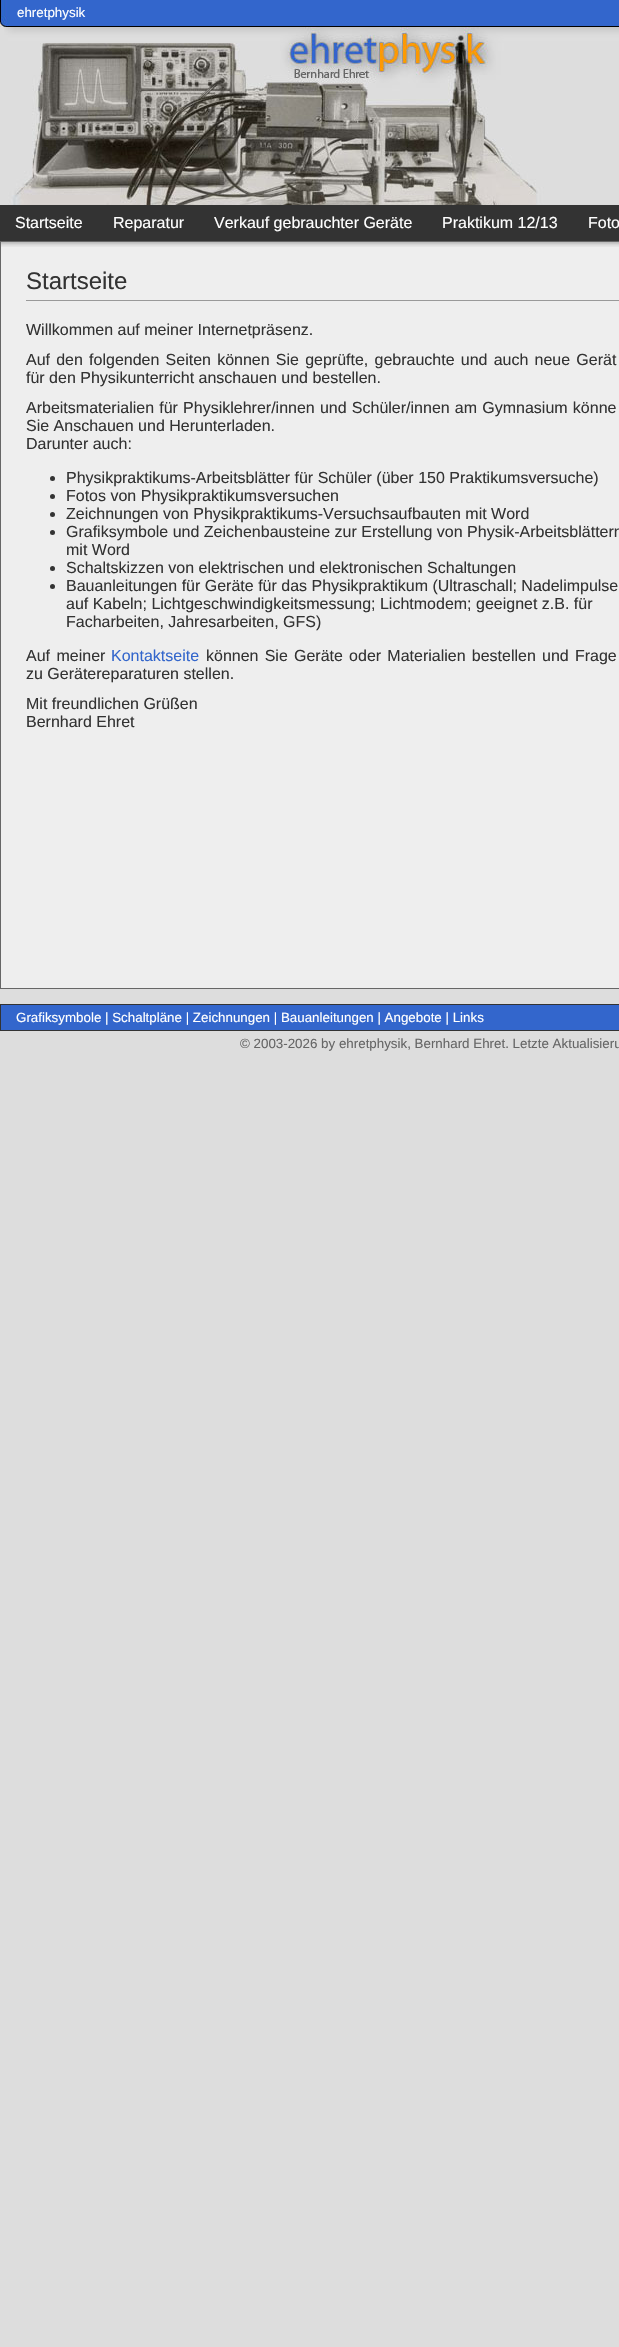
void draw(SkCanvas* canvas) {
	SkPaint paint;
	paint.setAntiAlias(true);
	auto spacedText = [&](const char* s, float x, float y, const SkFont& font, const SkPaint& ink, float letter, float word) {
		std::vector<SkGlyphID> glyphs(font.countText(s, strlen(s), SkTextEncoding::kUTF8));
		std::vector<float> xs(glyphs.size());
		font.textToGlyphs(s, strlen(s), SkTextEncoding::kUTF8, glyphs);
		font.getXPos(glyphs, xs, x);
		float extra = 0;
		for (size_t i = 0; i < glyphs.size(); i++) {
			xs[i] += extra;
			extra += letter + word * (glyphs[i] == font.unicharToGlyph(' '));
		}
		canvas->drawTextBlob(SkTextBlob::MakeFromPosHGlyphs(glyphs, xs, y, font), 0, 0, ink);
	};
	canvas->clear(0xffdddddd);
	canvas->drawImageRect(SkImages::DeferredFromEncodedData(SkData::MakeFromFileName("img1.png")), SkRect::MakeXYWH(4, 27, 615, 178), SkSamplingOptions());
	paint.setColor(0xff3366cc);
	canvas->drawRect(SkRect::MakeXYWH(10, 0, 609, 26), paint);
	canvas->drawImageRect(SkImages::DeferredFromEncodedData(SkData::MakeFromFileName("img2.png")), SkRect::MakeXYWH(0, 0, 10, 27), SkSamplingOptions());
	paint.setColor(0xff000000);
	canvas->drawRect(SkRect::MakeXYWH(10, 26, 609, 1), paint);
	SkFont f1(fontMgr->matchFamilyStyle("Liberation Sans", SkFontStyle::Normal()), 13.35);
	f1.setSubpixel(true);
	paint.setColor(0xffffffff);
	canvas->drawString("ehretphysik", 17, 17, f1, paint);
	paint.setColor(0xff333333);
	canvas->drawRect(SkRect::MakeXYWH(0, 205, 619, 36), paint);
	SkFont f2(fontMgr->matchFamilyStyle("Liberation Sans", SkFontStyle::Normal()), 16);
	f2.setSubpixel(true);
	paint.setColor(0xffffffff);
	canvas->drawString("Startseite", 15, 228, f2, paint);
	canvas->drawString("Reparatur", 113, 228, f2, paint);
	canvas->drawString("Verkauf gebrauchter Geräte", 214, 228, f2, paint);
	canvas->drawString("Praktikum 12/13", 442, 228, f2, paint);
	canvas->drawString("Foto", 588, 228, f2, paint);
	paint.setColor(0xffeeeeee);
	canvas->drawRect(SkRect::MakeXYWH(1, 247, 618, 741), paint);
	canvas->drawImageRect(SkImages::DeferredFromEncodedData(SkData::MakeFromFileName("img3.png")), SkRect::MakeXYWH(1, 242, 618, 5), SkSamplingOptions());
	paint.setStroke(true);
	paint.setStrokeWidth(1);
	paint.setColor(0xff666666);
	canvas->drawRect(SkRect::MakeXYWH(0.5, 241.5, 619, 747), paint);
	paint.setStroke(false);
	paint.setColor(0xff999999);
	canvas->drawRect(SkRect::MakeXYWH(26, 300, 593, 1), paint);
	SkFont f3(fontMgr->matchFamilyStyle("Liberation Sans", SkFontStyle::Normal()), 24);
	f3.setSubpixel(true);
	paint.setColor(0xff333333);
	canvas->drawString("Startseite", 26, 289, f3, paint);
	canvas->drawString("Willkommen auf meiner Internetpräsenz.", 26, 335, f2, paint);
	spacedText("Auf den folgenden Seiten können Sie geprüfte, gebrauchte und auch neue Gerät", 26, 365, f2, paint, 0, 1.75);
	canvas->drawString("für den Physikunterricht anschauen und bestellen.", 26, 383, f2, paint);
	spacedText("Arbeitsmaterialien für Physiklehrer/innen und Schüler/innen am Gymnasium könne", 26, 413, f2, paint, 0, 0.75);
	canvas->drawString("Sie Anschauen und Herunterladen.", 26, 431, f2, paint);
	canvas->drawString("Darunter auch:", 26, 449, f2, paint);
	canvas->drawCircle(52.5, 478.5, 2.5, paint);
	canvas->drawString("Physikpraktikums-Arbeitsblätter für Schüler (über 150 Praktikumsversuche)", 66, 483, f2, paint);
	canvas->drawCircle(52.5, 496.5, 2.5, paint);
	canvas->drawString("Fotos von Physikpraktikumsversuchen", 66, 501, f2, paint);
	canvas->drawCircle(52.5, 514.5, 2.5, paint);
	canvas->drawString("Zeichnungen von Physikpraktikums-Versuchsaufbauten mit Word", 66, 519, f2, paint);
	canvas->drawCircle(52.5, 532.5, 2.5, paint);
	canvas->drawString("Grafiksymbole und Zeichenbausteine zur Erstellung von Physik-Arbeitsblättern", 66, 537, f2, paint);
	canvas->drawString("mit Word", 66, 555, f2, paint);
	canvas->drawCircle(52.5, 568.5, 2.5, paint);
	canvas->drawString("Schaltskizzen von elektrischen und elektronischen Schaltungen", 66, 573, f2, paint);
	canvas->drawCircle(52.5, 586.5, 2.5, paint);
	canvas->drawString("Bauanleitungen für Geräte für das Physikpraktikum (Ultraschall; Nadelimpulse", 66, 591, f2, paint);
	canvas->drawString("auf Kabeln; Lichtgeschwindigkeitsmessung; Lichtmodem; geeignet z.B. für", 66, 609, f2, paint);
	canvas->drawString("Facharbeiten, Jahresarbeiten, GFS)", 66, 627, f2, paint);
	spacedText("Auf meiner", 26, 661, f2, paint, 0, 2);
	paint.setColor(0xff3366cc);
	canvas->drawString("Kontaktseite", 111, 661, f2, paint);
	paint.setColor(0xff333333);
	spacedText("können Sie Geräte oder Materialien bestellen und Frage", 206, 661, f2, paint, 0, 1.75);
	canvas->drawString("zu Gerätereparaturen stellen.", 26, 679, f2, paint);
	canvas->drawString("Mit freundlichen Grüßen", 26, 709, f2, paint);
	canvas->drawString("Bernhard Ehret", 26, 727, f2, paint);
	paint.setColor(0xff3366cc);
	canvas->drawRect(SkRect::MakeXYWH(0.5, 1004.5, 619, 26), paint);
	paint.setStroke(true);
	paint.setColor(0xff333333);
	canvas->drawRect(SkRect::MakeXYWH(0.5, 1004.5, 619, 26), paint);
	paint.setStroke(false);
	paint.setColor(0xffffffff);
	canvas->drawString("Grafiksymbole | Schaltpläne | Zeichnungen | Bauanleitungen | Angebote | Links", 16, 1022, f1, paint);
	paint.setColor(0xff666666);
	canvas->drawString("© 2003-2026 by ehretphysik, Bernhard Ehret. Letzte Aktualisieru", 240, 1048, f1, paint);
}
